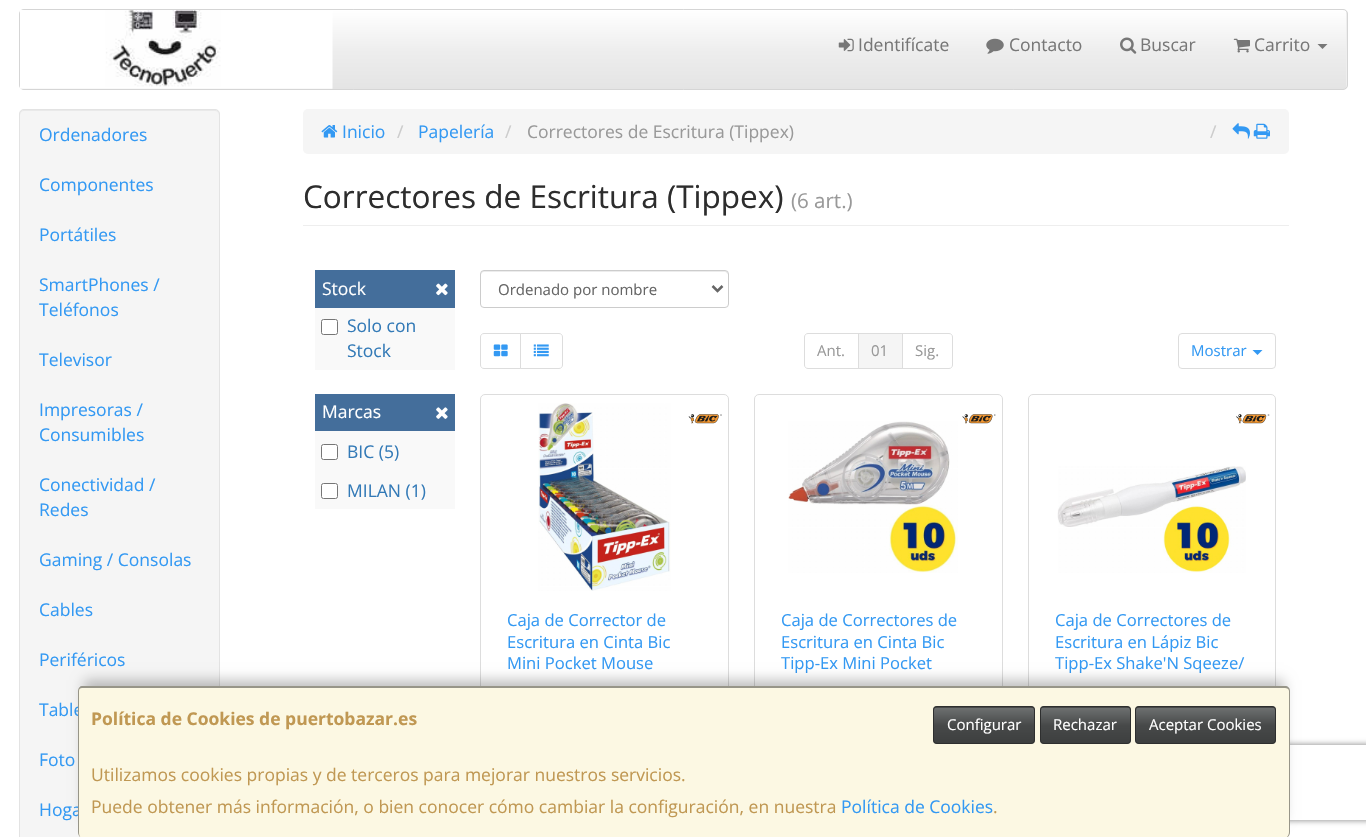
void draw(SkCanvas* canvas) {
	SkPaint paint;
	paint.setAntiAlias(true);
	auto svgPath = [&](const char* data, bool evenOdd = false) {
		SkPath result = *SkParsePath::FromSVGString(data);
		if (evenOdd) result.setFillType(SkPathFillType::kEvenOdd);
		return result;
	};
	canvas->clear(0xffffffff);
	paint.setColor(0xffeeeeee);
	canvas->drawRoundRect(SkRect::MakeXYWH(19, 9, 1329, 81), 5, 5, paint);
	{
		const SkColor colors[] = {0xffffffff, 0xffeeeeee, 0xffe4e4e4};
		const float stops[] = {0, 0.5, 1};
		const SkPoint ends[] = {{683, 10}, {683, 89}};
		paint.setShader(SkGradientShader::MakeLinear(ends, colors, stops, 3, SkTileMode::kClamp));
		paint.setAlpha(255);
	}
	canvas->drawRect(SkRect::MakeXYWH(20, 10, 1326, 79), paint);
	paint.setStroke(true);
	paint.setStrokeWidth(1);
	paint.setShader(nullptr);
	paint.setColor(0xffd5d5d5);
	canvas->drawRoundRect(SkRect::MakeXYWH(19.5, 9.5, 1328, 80), 4.5, 4.5, paint);
	canvas->drawImageRect(SkImages::DeferredFromEncodedData(SkData::MakeFromFileName("img1.png")), SkRect::MakeXYWH(20, 10, 313, 79), SkSamplingOptions());
	canvas->drawImageRect(SkImages::DeferredFromEncodedData(SkData::MakeFromFileName("img2.png")), SkRect::MakeXYWH(838, 38, 16, 14), SkSamplingOptions());
	SkFont f1(fontMgr->matchFamilyStyle("Open Sans", SkFontStyle::Normal()), 17.5);
	f1.setSubpixel(true);
	paint.setStroke(false);
	paint.setColor(0xff777777);
	canvas->drawString("Identifícate", 858, 51, f1, paint);
	canvas->drawImageRect(SkImages::DeferredFromEncodedData(SkData::MakeFromFileName("img3.png")), SkRect::MakeXYWH(986, 38, 18, 16), SkSamplingOptions());
	canvas->drawString("Contacto", 1009, 51, f1, paint);
	canvas->drawImageRect(SkImages::DeferredFromEncodedData(SkData::MakeFromFileName("img4.png")), SkRect::MakeXYWH(1120, 37, 17, 17), SkSamplingOptions());
	canvas->drawString("Buscar", 1140, 51, f1, paint);
	canvas->drawImageRect(SkImages::DeferredFromEncodedData(SkData::MakeFromFileName("img5.png")), SkRect::MakeXYWH(1233, 38, 17, 15), SkSamplingOptions());
	canvas->drawString("Carrito", 1254, 51, f1, paint);
	canvas->drawPath(svgPath("M1317.5 44H1327.5L1322.5 49Z"), paint);
	paint.setColor(0xfff5f5f5);
	canvas->drawRoundRect(SkRect::MakeXYWH(19, 109, 201, 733), 5, 5, paint);
	paint.setColor(0xffe9e9e9);
	canvas->drawPath(svgPath("M24 111H215C217 111 219 113 219 115V114C219 112 217 110 215 110H24C22 110 20 112 20 114V115C20 113 22 111 24 111Z"), paint);
	paint.setStroke(true);
	paint.setColor(0xffe3e3e3);
	canvas->drawRoundRect(SkRect::MakeXYWH(19.5, 109.5, 200, 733), 4.5, 4.5, paint);
	paint.setStroke(false);
	paint.setColor(0xff3399f3);
	canvas->drawString("Ordenadores", 39, 141, f1, paint);
	canvas->drawString("Componentes", 39, 191, f1, paint);
	canvas->drawString("Portátiles", 39, 241, f1, paint);
	canvas->drawString("SmartPhones /", 39, 291, f1, paint);
	canvas->drawString("Teléfonos", 39, 316, f1, paint);
	canvas->drawString("Televisor", 39, 366, f1, paint);
	canvas->drawString("Impresoras /", 39, 416, f1, paint);
	canvas->drawString("Consumibles", 39, 441, f1, paint);
	canvas->drawString("Conectividad /", 39, 491, f1, paint);
	canvas->drawString("Redes", 39, 516, f1, paint);
	canvas->drawString("Gaming / Consolas", 39, 566, f1, paint);
	canvas->drawString("Cables", 39, 616, f1, paint);
	canvas->drawString("Periféricos", 39, 666, f1, paint);
	canvas->drawString("Table", 39, 716, f1, paint);
	canvas->drawString("Foto", 39, 766, f1, paint);
	canvas->drawString("Hoga", 39, 816, f1, paint);
	paint.setColor(0xfff5f5f5);
	canvas->drawRoundRect(SkRect::MakeXYWH(303, 109, 986, 45), 5, 5, paint);
	canvas->drawImageRect(SkImages::DeferredFromEncodedData(SkData::MakeFromFileName("img6.png")), SkRect::MakeXYWH(321, 125, 17, 13), SkSamplingOptions());
	paint.setColor(0xff3399f3);
	canvas->drawString("Inicio", 342, 138, f1, paint);
	paint.setColor(0xffcccccc);
	canvas->drawString("/", 397, 138, f1, paint);
	paint.setColor(0xff3399f3);
	canvas->drawString("Papelería", 418, 138, f1, paint);
	paint.setColor(0xffcccccc);
	canvas->drawString("/", 505, 138, f1, paint);
	paint.setColor(0xff999999);
	canvas->drawString("Correctores de Escritura (Tippex)", 527, 138, f1, paint);
	paint.setColor(0xffcccccc);
	canvas->drawString("/", 1210, 138, f1, paint);
	canvas->drawImageRect(SkImages::DeferredFromEncodedData(SkData::MakeFromFileName("img7.png")), SkRect::MakeXYWH(1232, 123, 18, 16), SkSamplingOptions());
	canvas->drawImageRect(SkImages::DeferredFromEncodedData(SkData::MakeFromFileName("img8.png")), SkRect::MakeXYWH(1253, 123, 17, 16), SkSamplingOptions());
	paint.setColor(0xffeeeeee);
	canvas->drawRect(SkRect::MakeXYWH(303, 225, 986, 1), paint);
	SkFont f2(fontMgr->matchFamilyStyle("Open Sans", SkFontStyle::Normal()), 31.5);
	f2.setSubpixel(true);
	paint.setColor(0xff2d2d2d);
	canvas->drawString("Correctores de Escritura (Tippex)", 303, 208, f2, paint);
	SkFont f3(fontMgr->matchFamilyStyle("Open Sans", SkFontStyle::Normal()), 20.5);
	f3.setSubpixel(true);
	paint.setColor(0xff999999);
	canvas->drawString("(6 art.)", 791, 208, f3, paint);
	paint.setColor(0xff446e9b);
	canvas->drawRect(SkRect::MakeXYWH(315, 270, 140, 38), paint);
	paint.setColor(0xffffffff);
	canvas->drawString("Stock", 322, 295, f1, paint);
	canvas->drawImageRect(SkImages::DeferredFromEncodedData(SkData::MakeFromFileName("img9.png")), SkRect::MakeXYWH(436, 283, 12, 13), SkSamplingOptions());
	paint.setColor(0xfff9f9f9);
	canvas->drawRect(SkRect::MakeXYWH(315, 308, 140, 62), paint);
	paint.setColor(0xffffffff);
	canvas->drawRoundRect(SkRect::MakeXYWH(321.5, 319.5, 16, 15), 2, 2, paint);
	paint.setStroke(true);
	paint.setColor(0xff767676);
	canvas->drawRoundRect(SkRect::MakeXYWH(321.5, 319.5, 16, 15), 2, 2, paint);
	paint.setStroke(false);
	paint.setColor(0xff337ab7);
	canvas->drawString("Solo con", 347, 332, f1, paint);
	canvas->drawString("Stock", 347, 357, f1, paint);
	paint.setColor(0xff446e9b);
	canvas->drawRect(SkRect::MakeXYWH(315, 394, 140, 37), paint);
	paint.setColor(0xffffffff);
	canvas->drawString("Marcas", 322, 418, f1, paint);
	canvas->drawImageRect(SkImages::DeferredFromEncodedData(SkData::MakeFromFileName("img10.png")), SkRect::MakeXYWH(436, 407, 12, 12), SkSamplingOptions());
	paint.setColor(0xfff9f9f9);
	canvas->drawRect(SkRect::MakeXYWH(315, 431, 140, 78), paint);
	paint.setColor(0xffffffff);
	canvas->drawRoundRect(SkRect::MakeXYWH(321.5, 444.5, 16, 15), 2, 2, paint);
	paint.setStroke(true);
	paint.setColor(0xff767676);
	canvas->drawRoundRect(SkRect::MakeXYWH(321.5, 444.5, 16, 15), 2, 2, paint);
	paint.setStroke(false);
	paint.setColor(0xff337ab7);
	canvas->drawString("BIC (5)", 347, 458, f1, paint);
	paint.setColor(0xffffffff);
	canvas->drawRoundRect(SkRect::MakeXYWH(321.5, 483.5, 16, 15), 2, 2, paint);
	paint.setStroke(true);
	paint.setColor(0xff767676);
	canvas->drawRoundRect(SkRect::MakeXYWH(321.5, 483.5, 16, 15), 2, 2, paint);
	paint.setStroke(false);
	paint.setColor(0xff337ab7);
	canvas->drawString("MILAN (1)", 347, 497, f1, paint);
	paint.setColor(0xffececec);
	canvas->drawPath(svgPath("M484 272H725C726 272 728 274 728 275C728 273 728 271 726 271H483C481 271 481 273 481 275C481 274 482 272 484 272Z"), paint);
	paint.setStroke(true);
	paint.setColor(0xffcccccc);
	canvas->drawRoundRect(SkRect::MakeXYWH(480.5, 270.5, 248, 37), 3.5, 3.5, paint);
	paint.setStrokeWidth(2.5);
	paint.setColor(0xff666666);
	canvas->drawPath(svgPath("M712.5 286L717.5 291L722.5 286"), paint);
	SkFont f4(fontMgr->matchFamilyStyle("Open Sans", SkFontStyle::Normal()), 15);
	f4.setSubpixel(true);
	paint.setStroke(false);
	canvas->drawString("Ordenado por nombre", 498, 295, f4, paint);
	paint.setStroke(true);
	paint.setStrokeWidth(1);
	paint.setColor(0xffdddddd);
	canvas->drawPath(svgPath("M484 333.5H520.5V368.5H484C482 368.5 480.5 367 480.5 365V337C480.5 335 482 333.5 484 333.5Z"), paint);
	canvas->drawImageRect(SkImages::DeferredFromEncodedData(SkData::MakeFromFileName("img11.png")), SkRect::MakeXYWH(493, 344, 15, 13), SkSamplingOptions());
	paint.setStroke(false);
	paint.setColor(0xffffffff);
	canvas->drawPath(svgPath("M520.5 333.5H559C561 333.5 562.5 335 562.5 337V365C562.5 367 561 368.5 559 368.5H520.5Z"), paint);
	paint.setStroke(true);
	paint.setColor(0xffdddddd);
	canvas->drawPath(svgPath("M520.5 333.5H559C561 333.5 562.5 335 562.5 337V365C562.5 367 561 368.5 559 368.5H520.5Z"), paint);
	canvas->drawImageRect(SkImages::DeferredFromEncodedData(SkData::MakeFromFileName("img12.png")), SkRect::MakeXYWH(533, 344, 16, 13), SkSamplingOptions());
	canvas->drawPath(svgPath("M808 333.5H858.5V368.5H808C806 368.5 804.5 367 804.5 365V337C804.5 335 806 333.5 808 333.5Z"), paint);
	paint.setStroke(false);
	paint.setColor(0xff999999);
	canvas->drawString("Ant.", 817, 356, f4, paint);
	paint.setStroke(true);
	paint.setColor(0xffdddddd);
	canvas->drawPath(svgPath("M901.5 333.5H949C951 333.5 952.5 335 952.5 337V365C952.5 367 951 368.5 949 368.5H901.5Z"), paint);
	paint.setStroke(false);
	paint.setColor(0xfff5f5f5);
	canvas->drawRect(SkRect::MakeXYWH(858.5, 333.5, 44, 35), paint);
	paint.setStroke(true);
	paint.setColor(0xffdddddd);
	canvas->drawRect(SkRect::MakeXYWH(858.5, 333.5, 44, 35), paint);
	paint.setStroke(false);
	paint.setColor(0xff999999);
	canvas->drawString("01", 871, 356, f4, paint);
	canvas->drawString("Sig.", 915, 356, f4, paint);
	paint.setStroke(true);
	paint.setColor(0xffdddddd);
	canvas->drawRoundRect(SkRect::MakeXYWH(1178.5, 333.5, 97, 35), 3.5, 3.5, paint);
	paint.setStroke(false);
	paint.setColor(0xff3399f3);
	canvas->drawString("Mostrar", 1191, 356, f4, paint);
	canvas->drawPath(svgPath("M1252.5 350H1262.5L1257.5 355Z"), paint);
	paint.setStroke(true);
	paint.setColor(0xffdddddd);
	canvas->drawRoundRect(SkRect::MakeXYWH(480.5, 394.5, 248, 440), 4.5, 4.5, paint);
	canvas->drawImageRect(SkImages::DeferredFromEncodedData(SkData::MakeFromFileName("img13.png")), SkRect::MakeXYWH(538, 403, 133, 188), SkSamplingOptions());
	canvas->drawImageRect(SkImages::DeferredFromEncodedData(SkData::MakeFromFileName("img14.png")), SkRect::MakeXYWH(688, 414, 34, 10), SkSamplingOptions());
	SkFont f5(fontMgr->matchFamilyStyle("Open Sans", SkFontStyle::Normal()), 16.6);
	f5.setSubpixel(true);
	paint.setStroke(false);
	paint.setColor(0xff3399f3);
	canvas->drawString("Caja de Corrector de", 507, 626, f5, paint);
	canvas->drawString("Escritura en Cinta Bic", 507, 648, f5, paint);
	canvas->drawString("Mini Pocket Mouse", 507, 669, f5, paint);
	paint.setStroke(true);
	paint.setColor(0xffdddddd);
	canvas->drawRoundRect(SkRect::MakeXYWH(754.5, 394.5, 248, 440), 4.5, 4.5, paint);
	canvas->drawImageRect(SkImages::DeferredFromEncodedData(SkData::MakeFromFileName("img15.png")), SkRect::MakeXYWH(962, 414, 34, 10), SkSamplingOptions());
	canvas->drawImageRect(SkImages::DeferredFromEncodedData(SkData::MakeFromFileName("img16.png")), SkRect::MakeXYWH(788, 421, 170, 152), SkSamplingOptions());
	paint.setStroke(false);
	paint.setColor(0xff3399f3);
	canvas->drawString("Caja de Correctores de", 781, 626, f5, paint);
	canvas->drawString("Escritura en Cinta Bic", 781, 648, f5, paint);
	canvas->drawString("Tipp-Ex Mini Pocket", 781, 669, f5, paint);
	paint.setStroke(true);
	paint.setColor(0xffdddddd);
	canvas->drawRoundRect(SkRect::MakeXYWH(1028.5, 394.5, 247, 440), 4.5, 4.5, paint);
	canvas->drawImageRect(SkImages::DeferredFromEncodedData(SkData::MakeFromFileName("img17.png")), SkRect::MakeXYWH(1236, 414, 34, 10), SkSamplingOptions());
	canvas->drawImageRect(SkImages::DeferredFromEncodedData(SkData::MakeFromFileName("img18.png")), SkRect::MakeXYWH(1057, 466, 189, 107), SkSamplingOptions());
	paint.setStroke(false);
	paint.setColor(0xff3399f3);
	canvas->drawString("Caja de Correctores de", 1055, 626, f5, paint);
	canvas->drawString("Escritura en Lápiz Bic", 1055, 648, f5, paint);
	canvas->drawString("Tipp-Ex Shake'N Sqeeze/", 1055, 669, f5, paint);
	paint.setColor(0x40000000);
	paint.setMaskFilter(SkMaskFilter::MakeBlur(kNormal_SkBlurStyle, 6));
	canvas->drawRect(SkRect::MakeXYWH(84, 680, 1200, 139), paint);
	paint.setMaskFilter(nullptr);
	canvas->save();
	canvas->clipPath(svgPath("M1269 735H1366V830H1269ZM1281.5 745H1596.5C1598 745 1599 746 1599 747.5V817.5C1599 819 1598 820 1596.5 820H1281.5C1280 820 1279 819 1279 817.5V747.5C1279 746 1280 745 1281.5 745Z", true), true);
	paint.setColor(0xff808080);
	paint.setMaskFilter(SkMaskFilter::MakeBlur(kNormal_SkBlurStyle, 3));
	canvas->drawRoundRect(SkRect::MakeXYWH(1279, 745, 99, 75), 2.5, 2.5, paint);
	paint.setMaskFilter(nullptr);
	canvas->restore();
	paint.setColor(0xfffcf8e3);
	canvas->drawRoundRect(SkRect::MakeXYWH(78, 686, 1212, 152), 5, 5, paint);
	paint.setColor(0x66000000);
	canvas->drawPath(svgPath("M82 686H1285C1288 686 1290 688 1290 691V832C1290 835 1288 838 1285 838H82C80 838 78 835 78 832V691C78 688 80 686 82 686ZM82 688H1285C1287 688 1289 689 1289 691V832C1289 835 1287 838 1285 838H82C80 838 79 835 79 832V691C79 689 80 688 82 688Z", true), paint);
	SkFont f6(fontMgr->matchFamilyStyle("Open Sans", SkFontStyle::Bold()), 17.5);
	f6.setSubpixel(true);
	paint.setColor(0xffc09853);
	canvas->drawString("Política de Cookies de puertobazar.es", 91, 725, f6, paint);
	paint.setColor(0xff474949);
	canvas->drawRoundRect(SkRect::MakeXYWH(933, 706, 102, 38), 4, 4, paint);
	{
		const SkColor colors[] = {0xff6d7070, 0xff474949, 0xff3d3f3f};
		const float stops[] = {0, 0.5, 1};
		const SkPoint ends[] = {{984, 708}, {984, 743}};
		paint.setShader(SkGradientShader::MakeLinear(ends, colors, stops, 3, SkTileMode::kClamp));
		paint.setAlpha(255);
	}
	canvas->drawRect(SkRect::MakeXYWH(934, 708, 100, 35), paint);
	paint.setStroke(true);
	paint.setShader(nullptr);
	paint.setColor(0xff2e2f2f);
	canvas->drawRoundRect(SkRect::MakeXYWH(933.5, 706.5, 101, 37), 3.5, 3.5, paint);
	paint.setStroke(false);
	paint.setColor(0xffffffff);
	canvas->drawString("Configurar", 947, 730, f4, paint);
	paint.setColor(0xff474949);
	canvas->drawRoundRect(SkRect::MakeXYWH(1040, 706, 91, 38), 4, 4, paint);
	{
		const SkColor colors[] = {0xff6d7070, 0xff474949, 0xff3d3f3f};
		const float stops[] = {0, 0.5, 1};
		const SkPoint ends[] = {{1086, 708}, {1086, 743}};
		paint.setShader(SkGradientShader::MakeLinear(ends, colors, stops, 3, SkTileMode::kClamp));
		paint.setAlpha(255);
	}
	canvas->drawRect(SkRect::MakeXYWH(1041, 708, 89, 35), paint);
	paint.setStroke(true);
	paint.setShader(nullptr);
	paint.setColor(0xff2e2f2f);
	canvas->drawRoundRect(SkRect::MakeXYWH(1040.5, 706.5, 90, 37), 3.5, 3.5, paint);
	paint.setStroke(false);
	paint.setColor(0xffffffff);
	canvas->drawString("Rechazar", 1053, 730, f4, paint);
	paint.setColor(0xff474949);
	canvas->drawRoundRect(SkRect::MakeXYWH(1135, 706, 141, 38), 4, 4, paint);
	{
		const SkColor colors[] = {0xff6d7070, 0xff474949, 0xff3d3f3f};
		const float stops[] = {0, 0.5, 1};
		const SkPoint ends[] = {{1206, 708}, {1206, 743}};
		paint.setShader(SkGradientShader::MakeLinear(ends, colors, stops, 3, SkTileMode::kClamp));
		paint.setAlpha(255);
	}
	canvas->drawRect(SkRect::MakeXYWH(1136, 708, 139, 35), paint);
	paint.setStroke(true);
	paint.setShader(nullptr);
	paint.setColor(0xff2e2f2f);
	canvas->drawRoundRect(SkRect::MakeXYWH(1135.5, 706.5, 140, 37), 3.5, 3.5, paint);
	paint.setStroke(false);
	paint.setColor(0xffffffff);
	canvas->drawString("Aceptar Cookies", 1149, 730, f4, paint);
	paint.setColor(0xffc09853);
	canvas->drawString("Utilizamos cookies propias y de terceros para mejorar nuestros servicios.", 91, 781, f1, paint);
	canvas->drawString("Puede obtener más información, o bien conocer cómo cambiar la configuración, en nuestra", 91, 813, f1, paint);
	paint.setColor(0xff3399f3);
	canvas->drawString("Política de Cookies", 841, 813, f1, paint);
	paint.setColor(0xffc09853);
	canvas->drawString(".", 993, 813, f1, paint);
}
